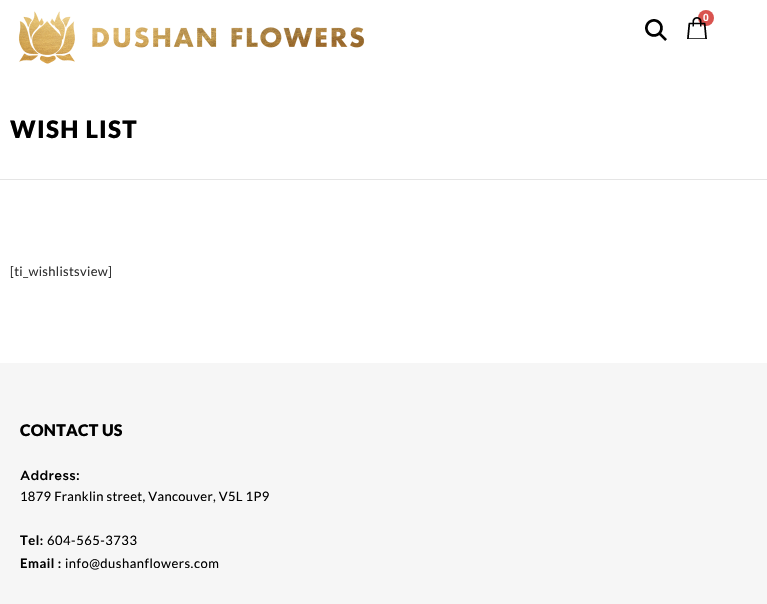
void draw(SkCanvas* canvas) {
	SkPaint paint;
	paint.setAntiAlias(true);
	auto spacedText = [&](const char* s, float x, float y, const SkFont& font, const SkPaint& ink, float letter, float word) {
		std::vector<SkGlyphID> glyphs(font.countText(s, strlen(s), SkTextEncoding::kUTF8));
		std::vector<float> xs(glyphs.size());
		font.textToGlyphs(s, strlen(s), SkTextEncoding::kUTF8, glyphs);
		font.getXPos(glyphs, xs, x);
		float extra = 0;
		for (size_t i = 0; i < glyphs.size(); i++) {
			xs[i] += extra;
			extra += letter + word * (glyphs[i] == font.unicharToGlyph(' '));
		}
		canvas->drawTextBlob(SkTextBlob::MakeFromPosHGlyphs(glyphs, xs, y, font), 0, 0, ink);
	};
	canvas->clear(0xffffffff);
	canvas->drawImageRect(SkImages::DeferredFromEncodedData(SkData::MakeFromFileName("img1.png")), SkRect::MakeXYWH(18, 11, 347, 53), SkSamplingOptions());
	paint.setColor(0xffd9534f);
	canvas->drawCircle(706, 18, 8, paint);
	SkFont f1(fontMgr->matchFamilyStyle("Roboto", SkFontStyle(600, SkFontStyle::kNormal_Width, SkFontStyle::kUpright_Slant)), 10);
	f1.setSubpixel(true);
	paint.setColor(0xffffffff);
	spacedText("0", 703, 21, f1, paint, 0.3, 0);
	canvas->drawImageRect(SkImages::DeferredFromEncodedData(SkData::MakeFromFileName("img2.png")), SkRect::MakeXYWH(687, 17, 20, 22), SkSamplingOptions());
	canvas->drawImageRect(SkImages::DeferredFromEncodedData(SkData::MakeFromFileName("img3.png")), SkRect::MakeXYWH(645, 19, 22, 22), SkSamplingOptions());
	paint.setColor(0xffe5e5e5);
	canvas->drawRect(SkRect::MakeXYWH(0, 179, 767, 1), paint);
	SkFont f2(fontMgr->matchFamilyStyle("Lato", SkFontStyle(900, SkFontStyle::kNormal_Width, SkFontStyle::kUpright_Slant)), 24);
	f2.setSubpixel(true);
	paint.setColor(0xff000000);
	spacedText("WISH LIST", 10, 138, f2, paint, 1.25, 0);
	SkFont f3(fontMgr->matchFamilyStyle("Lato", SkFontStyle::Normal()), 13);
	f3.setSubpixel(true);
	paint.setColor(0xff333333);
	spacedText("[ti_wishlistsview]", 10, 276, f3, paint, 0.3, 0);
	paint.setColor(0xfff6f6f6);
	canvas->drawRect(SkRect::MakeXYWH(0, 363, 767, 241), paint);
	SkFont f4(fontMgr->matchFamilyStyle("Lato", SkFontStyle(900, SkFontStyle::kNormal_Width, SkFontStyle::kUpright_Slant)), 16);
	f4.setSubpixel(true);
	paint.setColor(0xff000000);
	spacedText("CONTACT US", 20, 436, f4, paint, 0.25, 0);
	SkFont f5(fontMgr->matchFamilyStyle("Gotham", SkFontStyle(500, SkFontStyle::kNormal_Width, SkFontStyle::kUpright_Slant)), 13);
	f5.setSubpixel(true);
	spacedText("Address:", 20, 480, f5, paint, 0.3, 0);
	spacedText("1879 Franklin street, Vancouver, V5L 1P9", 20, 501, f3, paint, 0.3, 0);
	SkFont f6(fontMgr->matchFamilyStyle("Lato", SkFontStyle::Bold()), 13);
	f6.setSubpixel(true);
	spacedText("Tel:", 20, 545, f6, paint, 0.5, 0);
	spacedText("604-565-3733", 47, 545, f3, paint, 0.5, 0);
	spacedText("Email :", 20, 568, f6, paint, 0.5, 0);
	spacedText("info@dushanflowers.com", 65, 568, f3, paint, 0.5, 0);
}
